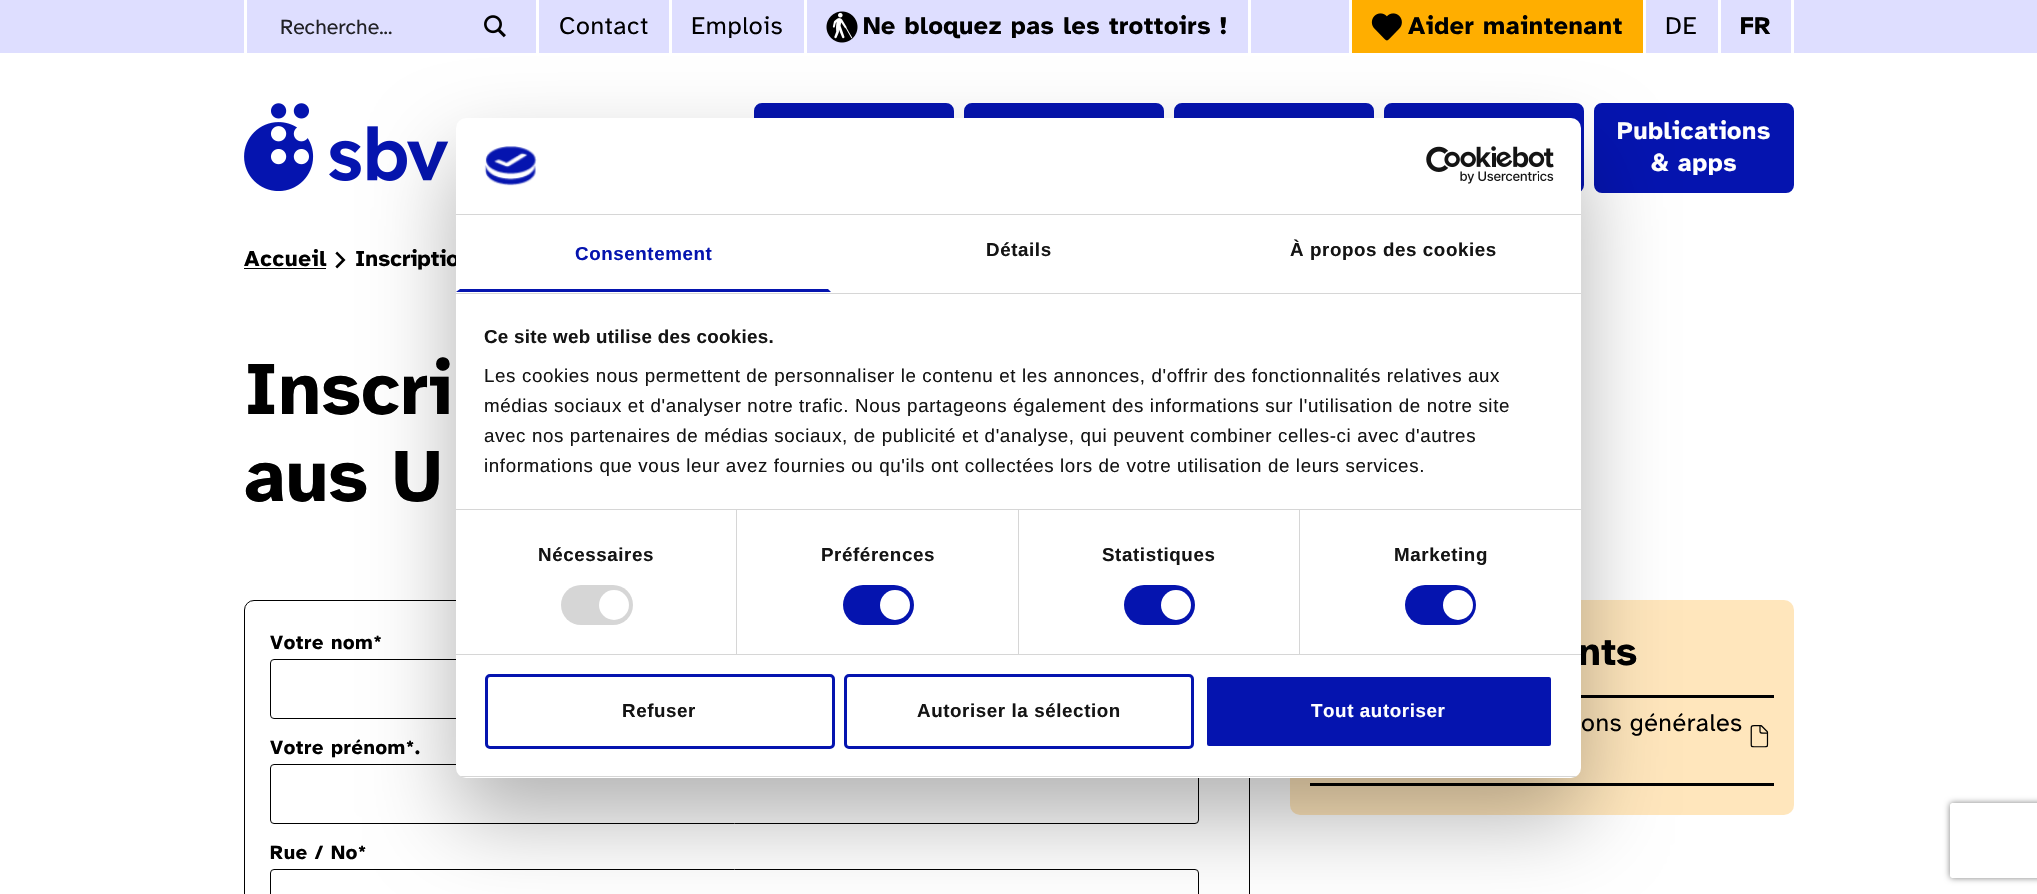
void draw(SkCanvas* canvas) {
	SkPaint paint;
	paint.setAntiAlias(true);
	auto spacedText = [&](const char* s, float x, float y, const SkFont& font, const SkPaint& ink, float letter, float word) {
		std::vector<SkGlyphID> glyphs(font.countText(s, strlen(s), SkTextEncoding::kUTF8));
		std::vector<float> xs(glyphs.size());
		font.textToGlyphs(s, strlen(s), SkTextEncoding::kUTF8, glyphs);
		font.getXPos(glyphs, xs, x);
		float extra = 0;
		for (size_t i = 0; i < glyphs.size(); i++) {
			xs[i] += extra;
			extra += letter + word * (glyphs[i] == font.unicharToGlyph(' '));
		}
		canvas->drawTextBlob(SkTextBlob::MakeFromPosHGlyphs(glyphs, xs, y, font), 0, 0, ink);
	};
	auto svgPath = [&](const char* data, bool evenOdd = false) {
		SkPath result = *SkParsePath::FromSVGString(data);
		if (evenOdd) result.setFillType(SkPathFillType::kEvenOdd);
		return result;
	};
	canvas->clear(0xffffffff);
	paint.setColor(0xffdedeff);
	canvas->drawRect(SkRect::MakeXYWH(0, 0, 2037, 53), paint);
	paint.setColor(0xffffffff);
	canvas->drawRect(SkRect::MakeXYWH(244, 0, 3, 53), paint);
	SkFont f1(fontMgr->matchFamilyStyle("Atkinson Hyperlegible", SkFontStyle::Normal()), 21.25);
	f1.setSubpixel(true);
	paint.setColor(0xff212126);
	canvas->drawString("Recherche...", 280, 34, f1, paint);
	canvas->drawImageRect(SkImages::DeferredFromEncodedData(SkData::MakeFromFileName("img1.png")), SkRect::MakeXYWH(484, 15, 22, 23), SkSamplingOptions());
	paint.setColor(0xffffffff);
	canvas->drawRect(SkRect::MakeXYWH(669, 0, 3, 53), paint);
	canvas->drawRect(SkRect::MakeXYWH(536, 0, 3, 53), paint);
	SkFont f2(fontMgr->matchFamilyStyle("Atkinson Hyperlegible", SkFontStyle::Normal()), 25);
	f2.setSubpixel(true);
	paint.setColor(0xff000000);
	spacedText("Contact", 559, 34, f2, paint, 0.6, 0);
	paint.setColor(0xffffffff);
	canvas->drawRect(SkRect::MakeXYWH(804, 0, 3, 53), paint);
	paint.setColor(0xff000000);
	spacedText("Emplois", 691, 34, f2, paint, 0.6, 0);
	paint.setColor(0xffffffff);
	canvas->drawRect(SkRect::MakeXYWH(1248, 0, 3, 53), paint);
	canvas->drawImageRect(SkImages::DeferredFromEncodedData(SkData::MakeFromFileName("img2.png")), SkRect::MakeXYWH(826, 11, 32, 32), SkSamplingOptions());
	SkFont f3(fontMgr->matchFamilyStyle("Atkinson Hyperlegible", SkFontStyle::Bold()), 25);
	f3.setSubpixel(true);
	paint.setColor(0xff000000);
	spacedText("Ne bloquez pas les trottoirs !", 863, 34, f3, paint, 0.6, 0);
	paint.setColor(0xffffae00);
	canvas->drawRect(SkRect::MakeXYWH(1352, 0, 291, 53), paint);
	paint.setColor(0xffffffff);
	canvas->drawRect(SkRect::MakeXYWH(1643, 0, 3, 53), paint);
	canvas->drawRect(SkRect::MakeXYWH(1349, 0, 3, 53), paint);
	canvas->drawImageRect(SkImages::DeferredFromEncodedData(SkData::MakeFromFileName("img3.png")), SkRect::MakeXYWH(1371, 13, 31, 28), SkSamplingOptions());
	paint.setColor(0xff000000);
	spacedText("Aider maintenant", 1408, 34, f3, paint, 0.6, 0);
	paint.setColor(0xffffffff);
	canvas->drawRect(SkRect::MakeXYWH(1718, 0, 3, 53), paint);
	paint.setColor(0xff000000);
	spacedText("DE", 1665, 34, f2, paint, 0.6, 0);
	paint.setColor(0xffffffff);
	canvas->drawRect(SkRect::MakeXYWH(1791, 0, 3, 53), paint);
	paint.setColor(0xff000000);
	spacedText("FR", 1740, 34, f3, paint, 0.6, 0);
	canvas->drawImageRect(SkImages::DeferredFromEncodedData(SkData::MakeFromFileName("img4.png")), SkRect::MakeXYWH(244, 103, 205, 88), SkSamplingOptions());
	paint.setColor(0xff0514af);
	canvas->drawRoundRect(SkRect::MakeXYWH(755.5, 104.5, 197, 87), 6.5, 6.5, paint);
	paint.setStroke(true);
	paint.setStrokeWidth(3);
	canvas->drawRoundRect(SkRect::MakeXYWH(755.5, 104.5, 197, 87), 6.5, 6.5, paint);
	paint.setStroke(false);
	canvas->drawRoundRect(SkRect::MakeXYWH(965.5, 104.5, 197, 87), 6.5, 6.5, paint);
	paint.setStroke(true);
	canvas->drawRoundRect(SkRect::MakeXYWH(965.5, 104.5, 197, 87), 6.5, 6.5, paint);
	paint.setStroke(false);
	canvas->drawRoundRect(SkRect::MakeXYWH(1175.5, 104.5, 197, 87), 6.5, 6.5, paint);
	paint.setStroke(true);
	canvas->drawRoundRect(SkRect::MakeXYWH(1175.5, 104.5, 197, 87), 6.5, 6.5, paint);
	paint.setStroke(false);
	canvas->drawRoundRect(SkRect::MakeXYWH(1385.5, 104.5, 197, 87), 6.5, 6.5, paint);
	paint.setStroke(true);
	canvas->drawRoundRect(SkRect::MakeXYWH(1385.5, 104.5, 197, 87), 6.5, 6.5, paint);
	paint.setStroke(false);
	canvas->drawRoundRect(SkRect::MakeXYWH(1595.5, 104.5, 197, 87), 6.5, 6.5, paint);
	paint.setStroke(true);
	canvas->drawRoundRect(SkRect::MakeXYWH(1595.5, 104.5, 197, 87), 6.5, 6.5, paint);
	paint.setStroke(false);
	paint.setColor(0xffffffff);
	spacedText("Publications", 1617, 139, f3, paint, 0.6, 0);
	spacedText("& apps", 1651, 171, f3, paint, 0.6, 0);
	canvas->drawImageRect(SkImages::DeferredFromEncodedData(SkData::MakeFromFileName("img7.png")), SkRect::MakeXYWH(335, 251, 11, 18), SkSamplingOptions());
	paint.setStroke(true);
	paint.setStrokeWidth(1);
	paint.setColor(0xff000000);
	canvas->drawRoundRect(SkRect::MakeXYWH(244.5, 600.5, 1005, 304), 9.5, 9.5, paint);
	canvas->drawRoundRect(SkRect::MakeXYWH(270.5, 659.5, 928, 59), 3.5, 3.5, paint);
	canvas->drawRoundRect(SkRect::MakeXYWH(270.5, 764.5, 928, 59), 3.5, 3.5, paint);
	canvas->drawRoundRect(SkRect::MakeXYWH(270.5, 869.5, 928, 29), 3.5, 3.5, paint);
	paint.setStroke(false);
	paint.setColor(0xffffe6bc);
	canvas->drawRoundRect(SkRect::MakeXYWH(1290, 600, 504, 215), 10, 10, paint);
	paint.setColor(0xff000000);
	canvas->drawRect(SkRect::MakeXYWH(1581, 695, 193, 3), paint);
	canvas->drawRect(SkRect::MakeXYWH(1310, 783, 464, 3), paint);
	paint.setColor(0x4d000000);
	paint.setMaskFilter(SkMaskFilter::MakeBlur(kNormal_SkBlurStyle, 42.5));
	canvas->drawRoundRect(SkRect::MakeXYWH(456, 158, 1125, 660), 10, 10, paint);
	paint.setMaskFilter(nullptr);
	SkFont f4(fontMgr->matchFamilyStyle("Atkinson Hyperlegible", SkFontStyle::Bold()), 22.5);
	f4.setSubpixel(true);
	paint.setColor(0xff000000);
	canvas->drawString("Inscriptio", 355, 266, f4, paint);
	SkFont f5(fontMgr->matchFamilyStyle("Atkinson Hyperlegible", SkFontStyle::Bold()), 40);
	f5.setSubpixel(true);
	canvas->drawString("nts", 1578, 665, f5, paint);
	paint.setColor(0xffffffff);
	canvas->drawRoundRect(SkRect::MakeXYWH(456, 118, 1125, 660), 10, 10, paint);
	paint.setColor(0xffd6d6d6);
	canvas->drawRect(SkRect::MakeXYWH(456, 214, 1125, 1), paint);
	canvas->drawImageRect(SkImages::DeferredFromEncodedData(SkData::MakeFromFileName("img5.png")), SkRect::MakeXYWH(484, 146, 53, 40), SkSamplingOptions());
	canvas->drawImageRect(SkImages::DeferredFromEncodedData(SkData::MakeFromFileName("img6.png")), SkRect::MakeXYWH(1426, 146, 128, 38), SkSamplingOptions());
	canvas->drawRect(SkRect::MakeXYWH(456, 293, 1125, 1), paint);
	paint.setColor(0xff0514af);
	canvas->drawPath(svgPath("M831 292H456L460 289H828Z"), paint);
	SkFont f6(fontMgr->matchFamilyStyle("Liberation Sans", SkFontStyle::Bold()), 18.75);
	f6.setSubpixel(true);
	spacedText("Consentement", 575, 260, f6, paint, 0.6, 0);
	paint.setColor(0xff141414);
	spacedText("Détails", 986, 256, f6, paint, 0.6, 0);
	spacedText("À propos des cookies", 1290, 256, f6, paint, 0.6, 0);
	paint.setColor(0xffd6d6d6);
	canvas->drawRect(SkRect::MakeXYWH(456, 509, 1125, 1), paint);
	paint.setColor(0xff141414);
	spacedText("Ce site web utilise des cookies.", 484, 343, f6, paint, 0.3, 0);
	SkFont f7(fontMgr->matchFamilyStyle("Liberation Sans", SkFontStyle::Normal()), 18.75);
	f7.setSubpixel(true);
	spacedText("Les cookies nous permettent de personnaliser le contenu et les annonces, d'offrir des fonctionnalités relatives aux", 484, 382, f7, paint, 0.62, 0);
	spacedText("médias sociaux et d'analyser notre trafic. Nous partageons également des informations sur l'utilisation de notre site", 484, 412, f7, paint, 0.62, 0);
	spacedText("avec nos partenaires de médias sociaux, de publicité et d'analyse, qui peuvent combiner celles-ci avec d'autres", 484, 442, f7, paint, 0.62, 0);
	spacedText("informations que vous leur avez fournies ou qu'ils ont collectées lors de votre utilisation de leurs services.", 484, 472, f7, paint, 0.62, 0);
	paint.setColor(0xffd6d6d6);
	canvas->drawRect(SkRect::MakeXYWH(456, 654, 1125, 1), paint);
	canvas->drawRect(SkRect::MakeXYWH(736, 510, 1, 144), paint);
	paint.setColor(0xff141414);
	spacedText("Nécessaires", 538, 561, f6, paint, 0.6, 0);
	paint.setColor(0xffd6d6d6);
	canvas->drawRoundRect(SkRect::MakeXYWH(561, 585, 72, 40), 20, 20, paint);
	paint.setColor(0xffffffff);
	canvas->drawCircle(614, 605, 15, paint);
	paint.setColor(0xffd6d6d6);
	canvas->drawRect(SkRect::MakeXYWH(1018, 510, 1, 144), paint);
	paint.setColor(0xff141414);
	spacedText("Préférences", 821, 561, f6, paint, 0.6, 0);
	paint.setColor(0xff0514af);
	canvas->drawRoundRect(SkRect::MakeXYWH(843, 585, 71, 40), 20, 20, paint);
	paint.setColor(0xffffffff);
	canvas->drawCircle(895, 605, 15, paint);
	paint.setColor(0xffd6d6d6);
	canvas->drawRect(SkRect::MakeXYWH(1299, 510, 1, 144), paint);
	paint.setColor(0xff141414);
	spacedText("Statistiques", 1102, 561, f6, paint, 0.6, 0);
	paint.setColor(0xff0514af);
	canvas->drawRoundRect(SkRect::MakeXYWH(1124, 585, 71, 40), 20, 20, paint);
	paint.setColor(0xffffffff);
	canvas->drawCircle(1176, 605, 15, paint);
	paint.setColor(0xff141414);
	spacedText("Marketing", 1394, 561, f6, paint, 0.6, 0);
	paint.setColor(0xff0514af);
	canvas->drawRoundRect(SkRect::MakeXYWH(1405, 585, 71, 40), 20, 20, paint);
	paint.setColor(0xffffffff);
	canvas->drawCircle(1458, 605, 15, paint);
	canvas->save();
	canvas->clipPath(svgPath("M466 118H1571C1576.5 118 1581 122.5 1581 128V768C1581 773.5 1576.5 778 1571 778H466C460.5 778 456 773.5 456 768V128C456 122.5 460.5 118 466 118Z"), true);
	paint.setColor(0xffd6d6d6);
	canvas->drawRect(SkRect::MakeXYWH(456, 776, 1125, 1), paint);
	canvas->restore();
	paint.setStroke(true);
	paint.setStrokeWidth(3);
	paint.setColor(0xff0514af);
	canvas->drawRoundRect(SkRect::MakeXYWH(486.5, 675.5, 347, 72), 3.5, 3.5, paint);
	paint.setStroke(false);
	paint.setColor(0xff141414);
	spacedText("Refuser", 622, 717, f6, paint, 0.6, 0);
	paint.setStroke(true);
	paint.setColor(0xff0514af);
	canvas->drawRoundRect(SkRect::MakeXYWH(845.5, 675.5, 347, 72), 3.5, 3.5, paint);
	paint.setStroke(false);
	paint.setColor(0xff141414);
	spacedText("Autoriser la sélection", 917, 717, f6, paint, 0.6, 0);
	paint.setColor(0xff0514af);
	canvas->drawRoundRect(SkRect::MakeXYWH(1205.5, 675.5, 347, 72), 3.5, 3.5, paint);
	paint.setStroke(true);
	paint.setColor(0xffffffff);
	canvas->drawRoundRect(SkRect::MakeXYWH(1205.5, 675.5, 347, 72), 3.5, 3.5, paint);
	paint.setStroke(false);
	spacedText("Tout autoriser", 1311, 717, f6, paint, 0.6, 0);
	paint.setColor(0xff000000);
	spacedText("Accueil", 244, 266, f4, paint, 0.6, 0);
	canvas->drawRect(SkRect::MakeXYWH(244, 268, 82, 1), paint);
	SkFont f8(fontMgr->matchFamilyStyle("Atkinson Hyperlegible", SkFontStyle::Bold()), 75);
	f8.setSubpixel(true);
	canvas->drawString("Inscri", 244, 414, f8, paint);
	canvas->drawString("aus U", 244, 501, f8, paint);
	SkFont f9(fontMgr->matchFamilyStyle("Atkinson Hyperlegible", SkFontStyle::Bold()), 20);
	f9.setSubpixel(true);
	spacedText("Votre nom*", 270, 649, f9, paint, 0.6, 0);
	spacedText("Votre prénom*.", 270, 754, f9, paint, 0.6, 0);
	spacedText("Rue / No*", 270, 859, f9, paint, 0.6, 0);
	spacedText("ons générales", 1581, 731, f2, paint, 0.6, 0);
	canvas->drawImageRect(SkImages::DeferredFromEncodedData(SkData::MakeFromFileName("img8.png")), SkRect::MakeXYWH(1750, 725, 19, 23), SkSamplingOptions());
	canvas->save();
	canvas->clipPath(svgPath("M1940 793H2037V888H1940ZM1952.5 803H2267.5C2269 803 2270 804 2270 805.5V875.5C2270 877 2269 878 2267.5 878H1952.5C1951 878 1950 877 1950 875.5V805.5C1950 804 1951 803 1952.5 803Z", true), true);
	paint.setColor(0xff808080);
	paint.setMaskFilter(SkMaskFilter::MakeBlur(kNormal_SkBlurStyle, 3));
	canvas->drawRoundRect(SkRect::MakeXYWH(1950, 803, 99, 75), 2.5, 2.5, paint);
	paint.setMaskFilter(nullptr);
	canvas->restore();
}
